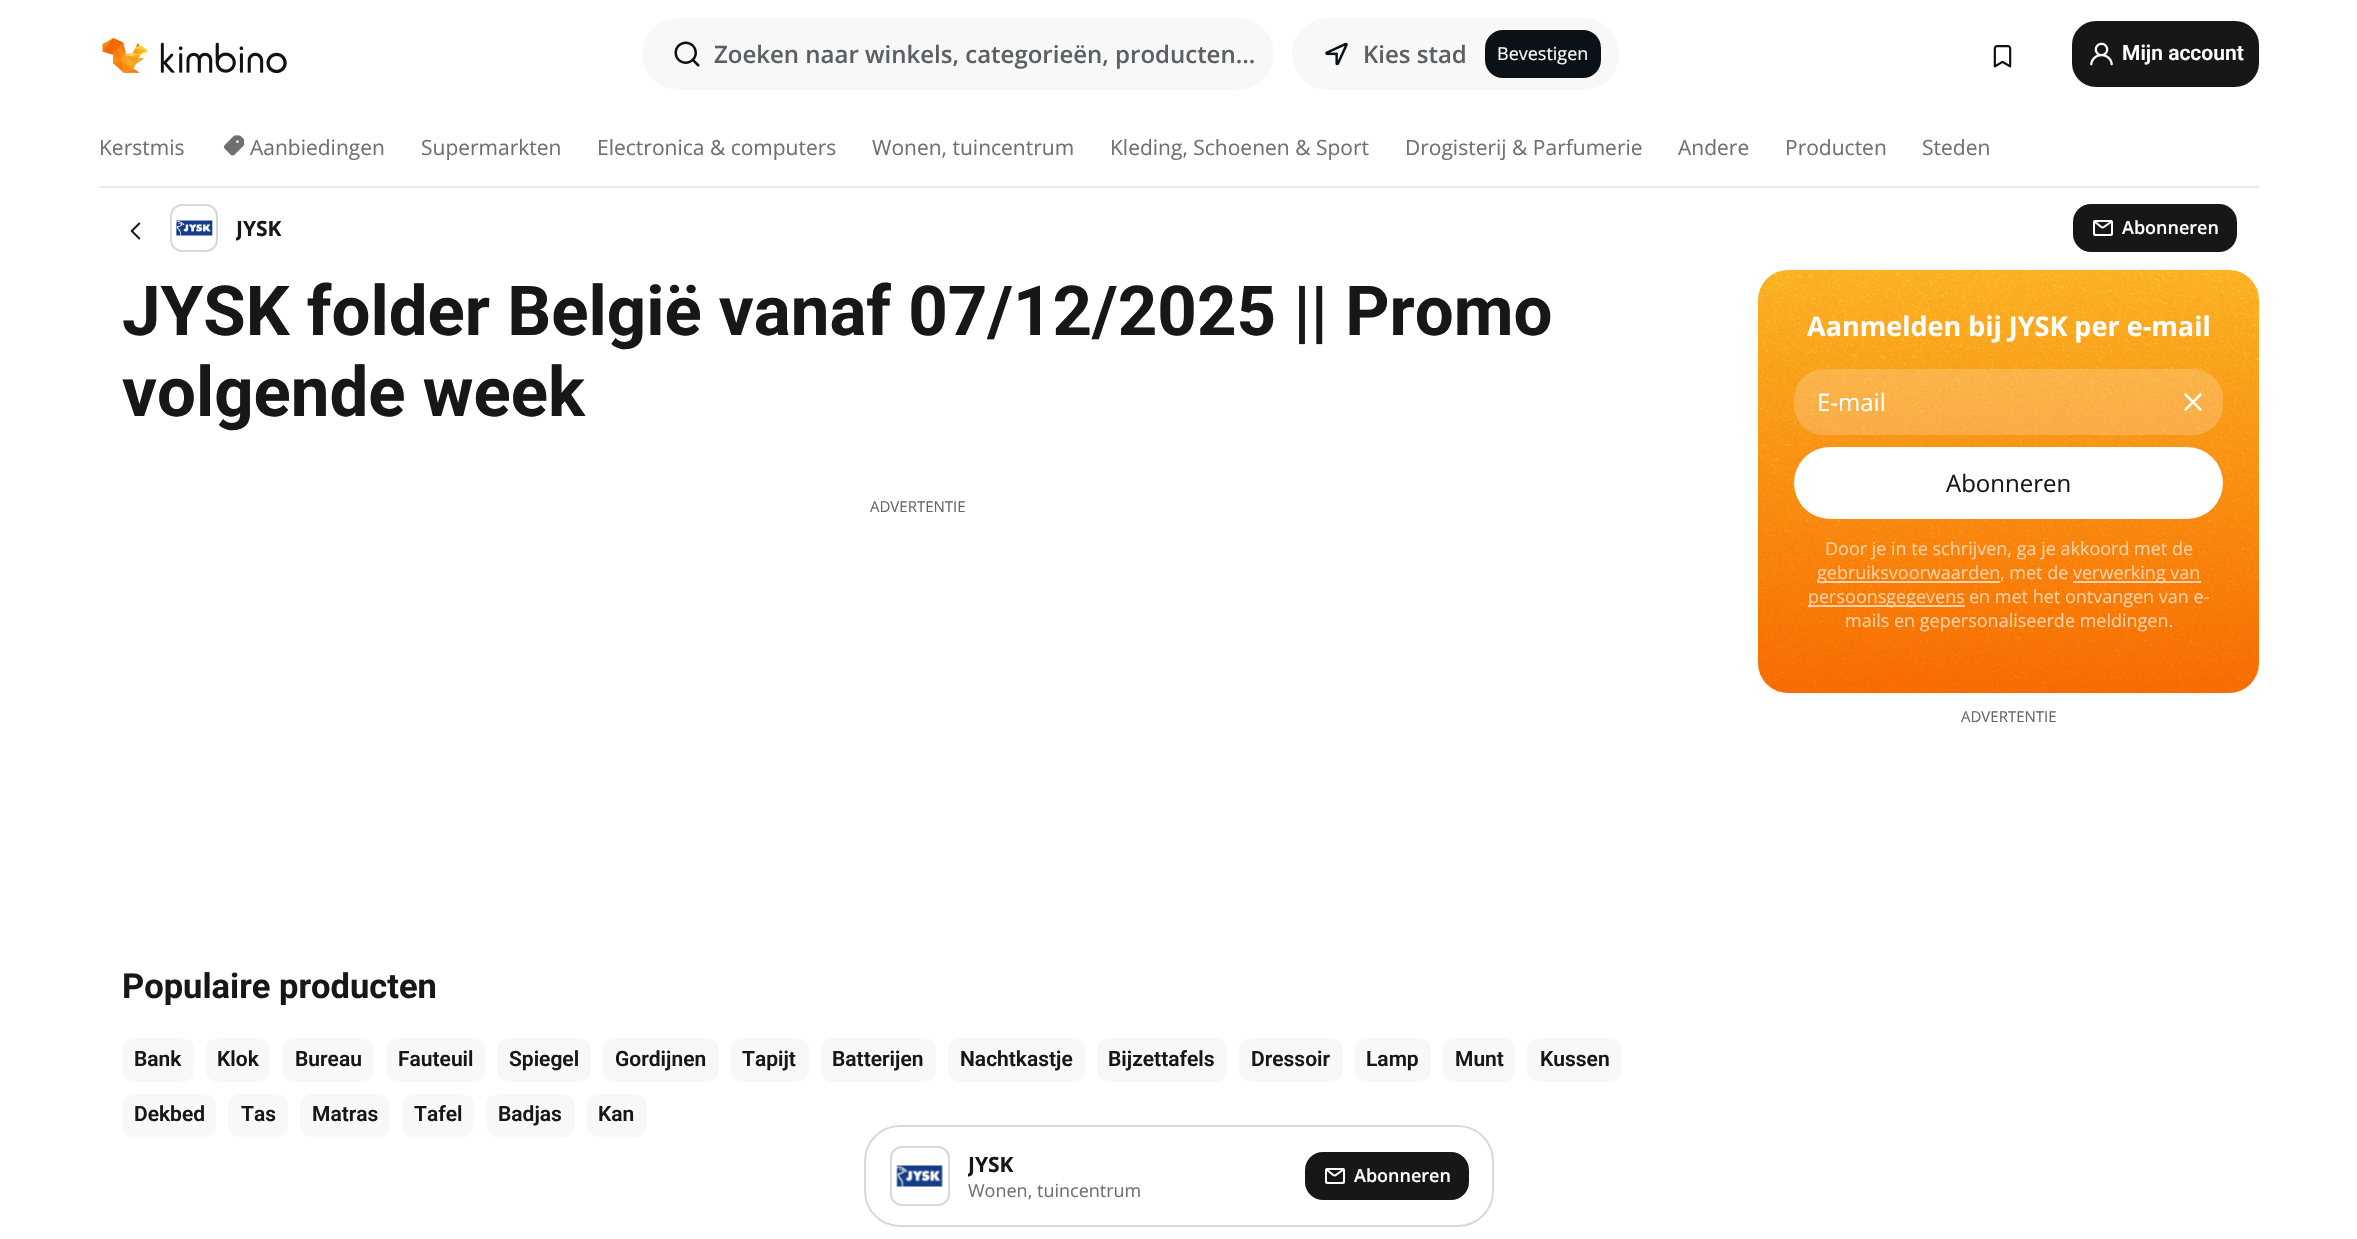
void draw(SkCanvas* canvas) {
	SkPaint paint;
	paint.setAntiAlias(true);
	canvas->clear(0xffffffff);
	canvas->drawImageRect(SkImages::DeferredFromEncodedData(SkData::MakeFromFileName("img1.png")), SkRect::MakeXYWH(102, 38, 185, 36), SkSamplingOptions());
	paint.setColor(0xfff8f8f8);
	canvas->drawRoundRect(SkRect::MakeXYWH(642, 18, 632, 72), 36, 36, paint);
	canvas->drawImageRect(SkImages::DeferredFromEncodedData(SkData::MakeFromFileName("img2.png")), SkRect::MakeXYWH(674, 41, 26, 26), SkSamplingOptions());
	SkFont f1(fontMgr->matchFamilyStyle("Open Sans", SkFontStyle(600, SkFontStyle::kNormal_Width, SkFontStyle::kUpright_Slant)), 24);
	f1.setSubpixel(true);
	paint.setColor(0xff5b6064);
	canvas->drawString("Zoeken naar winkels, categorieën, producten...", 714, 63, f1, paint);
	paint.setColor(0xfff8f8f8);
	canvas->drawRoundRect(SkRect::MakeXYWH(1292, 18, 327, 72), 36, 36, paint);
	canvas->drawImageRect(SkImages::DeferredFromEncodedData(SkData::MakeFromFileName("img3.png")), SkRect::MakeXYWH(1325, 42, 23, 24), SkSamplingOptions());
	paint.setColor(0xff5b6064);
	canvas->drawString("Kies stad", 1363, 63, f1, paint);
	paint.setColor(0xff0a1217);
	canvas->drawRoundRect(SkRect::MakeXYWH(1485, 30, 116, 48), 18, 18, paint);
	SkFont f2(fontMgr->matchFamilyStyle("Open Sans", SkFontStyle::Normal()), 18);
	f2.setSubpixel(true);
	paint.setColor(0xffffffff);
	canvas->drawString("Bevestigen", 1497, 60, f2, paint);
	canvas->drawImageRect(SkImages::DeferredFromEncodedData(SkData::MakeFromFileName("img4.png")), SkRect::MakeXYWH(1993, 45, 19, 23), SkSamplingOptions());
	paint.setColor(0xff171717);
	canvas->drawRoundRect(SkRect::MakeXYWH(2073.5, 22.5, 184, 63), 22.5, 22.5, paint);
	paint.setStroke(true);
	paint.setStrokeWidth(3);
	canvas->drawRoundRect(SkRect::MakeXYWH(2073.5, 22.5, 184, 63), 22.5, 22.5, paint);
	canvas->drawImageRect(SkImages::DeferredFromEncodedData(SkData::MakeFromFileName("img5.png")), SkRect::MakeXYWH(2090, 42, 23, 24), SkSamplingOptions());
	SkFont f3(fontMgr->matchFamilyStyle("Roboto", SkFontStyle(600, SkFontStyle::kNormal_Width, SkFontStyle::kUpright_Slant)), 21);
	f3.setSubpixel(true);
	paint.setStroke(false);
	paint.setColor(0xffffffff);
	canvas->drawString("Mijn account", 2122, 60, f3, paint);
	paint.setColor(0xffebebeb);
	canvas->drawRect(SkRect::MakeXYWH(99, 186, 2160, 2), paint);
	SkFont f4(fontMgr->matchFamilyStyle("Open Sans", SkFontStyle::Normal()), 21);
	f4.setSubpixel(true);
	paint.setColor(0xff707070);
	canvas->drawString("Kerstmis", 99, 155, f4, paint);
	canvas->drawImageRect(SkImages::DeferredFromEncodedData(SkData::MakeFromFileName("img6.png")), SkRect::MakeXYWH(223, 135, 22, 21), SkSamplingOptions());
	canvas->drawString("Aanbiedingen", 250, 155, f4, paint);
	canvas->drawString("Supermarkten", 421, 155, f4, paint);
	canvas->drawString("Electronica & computers", 597, 155, f4, paint);
	canvas->drawString("Wonen, tuincentrum", 872, 155, f4, paint);
	canvas->drawString("Kleding, Schoenen & Sport", 1110, 155, f4, paint);
	canvas->drawString("Drogisterij & Parfumerie", 1405, 155, f4, paint);
	canvas->drawString("Andere", 1678, 155, f4, paint);
	canvas->drawString("Producten", 1785, 155, f4, paint);
	canvas->drawString("Steden", 1922, 155, f4, paint);
	canvas->drawImageRect(SkImages::DeferredFromEncodedData(SkData::MakeFromFileName("img7.png")), SkRect::MakeXYWH(130, 222, 11, 18), SkSamplingOptions());
	paint.setStroke(true);
	paint.setStrokeWidth(2);
	paint.setColor(0xffd9d9d9);
	canvas->drawRoundRect(SkRect::MakeXYWH(171, 205, 46, 46), 11, 11, paint);
	canvas->drawImageRect(SkImages::DeferredFromEncodedData(SkData::MakeFromFileName("img8.png")), SkRect::MakeXYWH(176, 220, 37, 16), SkSamplingOptions());
	canvas->save();
	canvas->clipRect(SkRect::MakeXYWH(236, 213, 45, 30));
	SkFont f5(fontMgr->matchFamilyStyle("Open Sans", SkFontStyle::Bold()), 21);
	f5.setSubpixel(true);
	paint.setStroke(false);
	paint.setColor(0xff171717);
	canvas->drawString("JYSK", 236, 236, f5, paint);
	canvas->restore();
	canvas->drawRoundRect(SkRect::MakeXYWH(2073, 204, 164, 48), 18, 18, paint);
	canvas->drawImageRect(SkImages::DeferredFromEncodedData(SkData::MakeFromFileName("img9.png")), SkRect::MakeXYWH(2093, 220, 20, 16), SkSamplingOptions());
	SkFont f6(fontMgr->matchFamilyStyle("Open Sans", SkFontStyle(600, SkFontStyle::kNormal_Width, SkFontStyle::kUpright_Slant)), 18);
	f6.setSubpixel(true);
	paint.setColor(0xffffffff);
	canvas->drawString("Abonneren", 2122, 234, f6, paint);
	SkFont f7(fontMgr->matchFamilyStyle("Roboto", SkFontStyle::Bold()), 69);
	f7.setSubpixel(true);
	paint.setColor(0xff171717);
	canvas->drawString("JYSK folder België vanaf 07/12/2025 || Promo", 122, 335, f7, paint);
	canvas->drawString("volgende week", 122, 416, f7, paint);
	SkFont f8(fontMgr->matchFamilyStyle("Open Sans", SkFontStyle::Normal()), 15);
	f8.setSubpixel(true);
	paint.setColor(0xff666666);
	canvas->drawString("ADVERTENTIE", 870, 512, f8, paint);
	SkFont f9(fontMgr->matchFamilyStyle("Roboto", SkFontStyle::Bold()), 34.5);
	f9.setSubpixel(true);
	paint.setColor(0xff171717);
	canvas->drawString("Populaire producten", 122, 998, f9, paint);
	paint.setColor(0xfff8f8f8);
	canvas->drawRoundRect(SkRect::MakeXYWH(122, 1038, 72, 44), 12, 12, paint);
	paint.setColor(0xff171717);
	canvas->drawString("Bank", 134, 1066, f3, paint);
	paint.setColor(0xfff8f8f8);
	canvas->drawRoundRect(SkRect::MakeXYWH(206, 1038, 64, 44), 12, 12, paint);
	paint.setColor(0xff171717);
	canvas->drawString("Klok", 217, 1066, f3, paint);
	paint.setColor(0xfff8f8f8);
	canvas->drawRoundRect(SkRect::MakeXYWH(282, 1038, 92, 44), 12, 12, paint);
	paint.setColor(0xff171717);
	canvas->drawString("Bureau", 295, 1066, f3, paint);
	paint.setColor(0xfff8f8f8);
	canvas->drawRoundRect(SkRect::MakeXYWH(386, 1038, 99, 44), 12, 12, paint);
	paint.setColor(0xff171717);
	canvas->drawString("Fauteuil", 398, 1066, f3, paint);
	paint.setColor(0xfff8f8f8);
	canvas->drawRoundRect(SkRect::MakeXYWH(497, 1038, 94, 44), 12, 12, paint);
	paint.setColor(0xff171717);
	canvas->drawString("Spiegel", 509, 1066, f3, paint);
	paint.setColor(0xfff8f8f8);
	canvas->drawRoundRect(SkRect::MakeXYWH(603, 1038, 116, 44), 12, 12, paint);
	paint.setColor(0xff171717);
	canvas->drawString("Gordijnen", 615, 1066, f3, paint);
	paint.setColor(0xfff8f8f8);
	canvas->drawRoundRect(SkRect::MakeXYWH(731, 1038, 78, 44), 12, 12, paint);
	paint.setColor(0xff171717);
	canvas->drawString("Tapijt", 742, 1066, f3, paint);
	paint.setColor(0xfff8f8f8);
	canvas->drawRoundRect(SkRect::MakeXYWH(821, 1038, 115, 44), 12, 12, paint);
	paint.setColor(0xff171717);
	canvas->drawString("Batterijen", 832, 1066, f3, paint);
	paint.setColor(0xfff8f8f8);
	canvas->drawRoundRect(SkRect::MakeXYWH(948, 1038, 137, 44), 12, 12, paint);
	paint.setColor(0xff171717);
	canvas->drawString("Nachtkastje", 960, 1066, f3, paint);
	paint.setColor(0xfff8f8f8);
	canvas->drawRoundRect(SkRect::MakeXYWH(1097, 1038, 130, 44), 12, 12, paint);
	paint.setColor(0xff171717);
	canvas->drawString("Bijzettafels", 1108, 1066, f3, paint);
	paint.setColor(0xfff8f8f8);
	canvas->drawRoundRect(SkRect::MakeXYWH(1239, 1038, 104, 44), 12, 12, paint);
	paint.setColor(0xff171717);
	canvas->drawString("Dressoir", 1251, 1066, f3, paint);
	paint.setColor(0xfff8f8f8);
	canvas->drawRoundRect(SkRect::MakeXYWH(1355, 1038, 76, 44), 12, 12, paint);
	paint.setColor(0xff171717);
	canvas->drawString("Lamp", 1366, 1066, f3, paint);
	paint.setColor(0xfff8f8f8);
	canvas->drawRoundRect(SkRect::MakeXYWH(1443, 1038, 72, 44), 12, 12, paint);
	paint.setColor(0xff171717);
	canvas->drawString("Munt", 1455, 1066, f3, paint);
	paint.setColor(0xfff8f8f8);
	canvas->drawRoundRect(SkRect::MakeXYWH(1527, 1038, 95, 44), 12, 12, paint);
	paint.setColor(0xff171717);
	canvas->drawString("Kussen", 1540, 1066, f3, paint);
	paint.setColor(0xfff8f8f8);
	canvas->drawRoundRect(SkRect::MakeXYWH(122, 1094, 94, 43), 12, 12, paint);
	paint.setColor(0xff171717);
	canvas->drawString("Dekbed", 134, 1121, f3, paint);
	paint.setColor(0xfff8f8f8);
	canvas->drawRoundRect(SkRect::MakeXYWH(228, 1094, 60, 43), 12, 12, paint);
	paint.setColor(0xff171717);
	canvas->drawString("Tas", 241, 1121, f3, paint);
	paint.setColor(0xfff8f8f8);
	canvas->drawRoundRect(SkRect::MakeXYWH(300, 1094, 90, 43), 12, 12, paint);
	paint.setColor(0xff171717);
	canvas->drawString("Matras", 312, 1121, f3, paint);
	paint.setColor(0xfff8f8f8);
	canvas->drawRoundRect(SkRect::MakeXYWH(402, 1094, 72, 43), 12, 12, paint);
	paint.setColor(0xff171717);
	canvas->drawString("Tafel", 414, 1121, f3, paint);
	paint.setColor(0xfff8f8f8);
	canvas->drawRoundRect(SkRect::MakeXYWH(486, 1094, 89, 43), 12, 12, paint);
	paint.setColor(0xff171717);
	canvas->drawString("Badjas", 498, 1121, f3, paint);
	paint.setColor(0xfff8f8f8);
	canvas->drawRoundRect(SkRect::MakeXYWH(587, 1094, 60, 43), 12, 12, paint);
	paint.setColor(0xff171717);
	canvas->drawString("Kan", 598, 1121, f3, paint);
	canvas->drawImageRect(SkImages::DeferredFromEncodedData(SkData::MakeFromFileName("img10.png")), SkRect::MakeXYWH(1758, 270, 501, 423), SkSamplingOptions());
	SkFont f10(fontMgr->matchFamilyStyle("Open Sans", SkFontStyle::Bold()), 27);
	f10.setSubpixel(true);
	paint.setColor(0xffffffff);
	canvas->drawString("Aanmelden bij JYSK per e-mail", 1807, 336, f10, paint);
	paint.setColor(0x33ffffff);
	canvas->drawRoundRect(SkRect::MakeXYWH(1794, 369, 429, 66), 30, 30, paint);
	SkFont f11(fontMgr->matchFamilyStyle("Open Sans", SkFontStyle::Normal()), 24);
	f11.setSubpixel(true);
	paint.setColor(0xffffffff);
	canvas->drawString("E-mail", 1817, 411, f11, paint);
	canvas->drawImageRect(SkImages::DeferredFromEncodedData(SkData::MakeFromFileName("img11.png")), SkRect::MakeXYWH(2184, 393, 18, 18), SkSamplingOptions());
	canvas->drawRoundRect(SkRect::MakeXYWH(1794, 447, 429, 72), 36, 36, paint);
	paint.setColor(0xff171717);
	canvas->drawString("Abonneren", 1946, 492, f11, paint);
	paint.setColor(0xfffdd3a8);
	canvas->drawString("Door je in te schrijven, ga je akkoord met de", 1825, 555, f2, paint);
	paint.setColor(0xa3ffffff);
	canvas->drawRect(SkRect::MakeXYWH(1817, 581, 183, 2), paint);
	paint.setColor(0xfffdd3a8);
	canvas->drawString("gebruiksvoorwaarden", 1817, 579, f2, paint);
	canvas->drawString(", met de", 2000, 579, f2, paint);
	paint.setColor(0xa3ffffff);
	canvas->drawRect(SkRect::MakeXYWH(2073, 581, 128, 2), paint);
	paint.setColor(0xfffdd3a8);
	canvas->drawString("verwerking van", 2073, 579, f2, paint);
	paint.setColor(0xa3ffffff);
	canvas->drawRect(SkRect::MakeXYWH(1808, 605, 157, 2), paint);
	paint.setColor(0xfffdd3a8);
	canvas->drawString("persoonsgegevens", 1808, 603, f2, paint);
	canvas->drawString("en met het ontvangen van e-", 1969, 603, f2, paint);
	canvas->drawString("mails en gepersonaliseerde meldingen.", 1845, 627, f2, paint);
	paint.setColor(0xff666666);
	canvas->drawString("ADVERTENTIE", 1961, 722, f8, paint);
	paint.setStroke(true);
	paint.setColor(0xffd9d9d9);
	canvas->drawRoundRect(SkRect::MakeXYWH(865, 1126, 628, 100), 35, 35, paint);
	canvas->drawRoundRect(SkRect::MakeXYWH(891, 1147, 58, 58), 11, 11, paint);
	canvas->drawImageRect(SkImages::DeferredFromEncodedData(SkData::MakeFromFileName("img12.png")), SkRect::MakeXYWH(896, 1165, 47, 22), SkSamplingOptions());
	canvas->save();
	canvas->clipRect(SkRect::MakeXYWH(968, 1149, 331, 30));
	paint.setStroke(false);
	paint.setColor(0xff171717);
	canvas->drawString("JYSK", 968, 1172, f5, paint);
	canvas->restore();
	paint.setColor(0xff707070);
	canvas->drawString("Wonen, tuincentrum", 968, 1197, f2, paint);
	paint.setColor(0xff171717);
	canvas->drawRoundRect(SkRect::MakeXYWH(1305, 1152, 164, 48), 18, 18, paint);
	canvas->drawImageRect(SkImages::DeferredFromEncodedData(SkData::MakeFromFileName("img9.png")), SkRect::MakeXYWH(1325, 1168, 20, 16), SkSamplingOptions());
	paint.setColor(0xffffffff);
	canvas->drawString("Abonneren", 1354, 1182, f6, paint);
}
